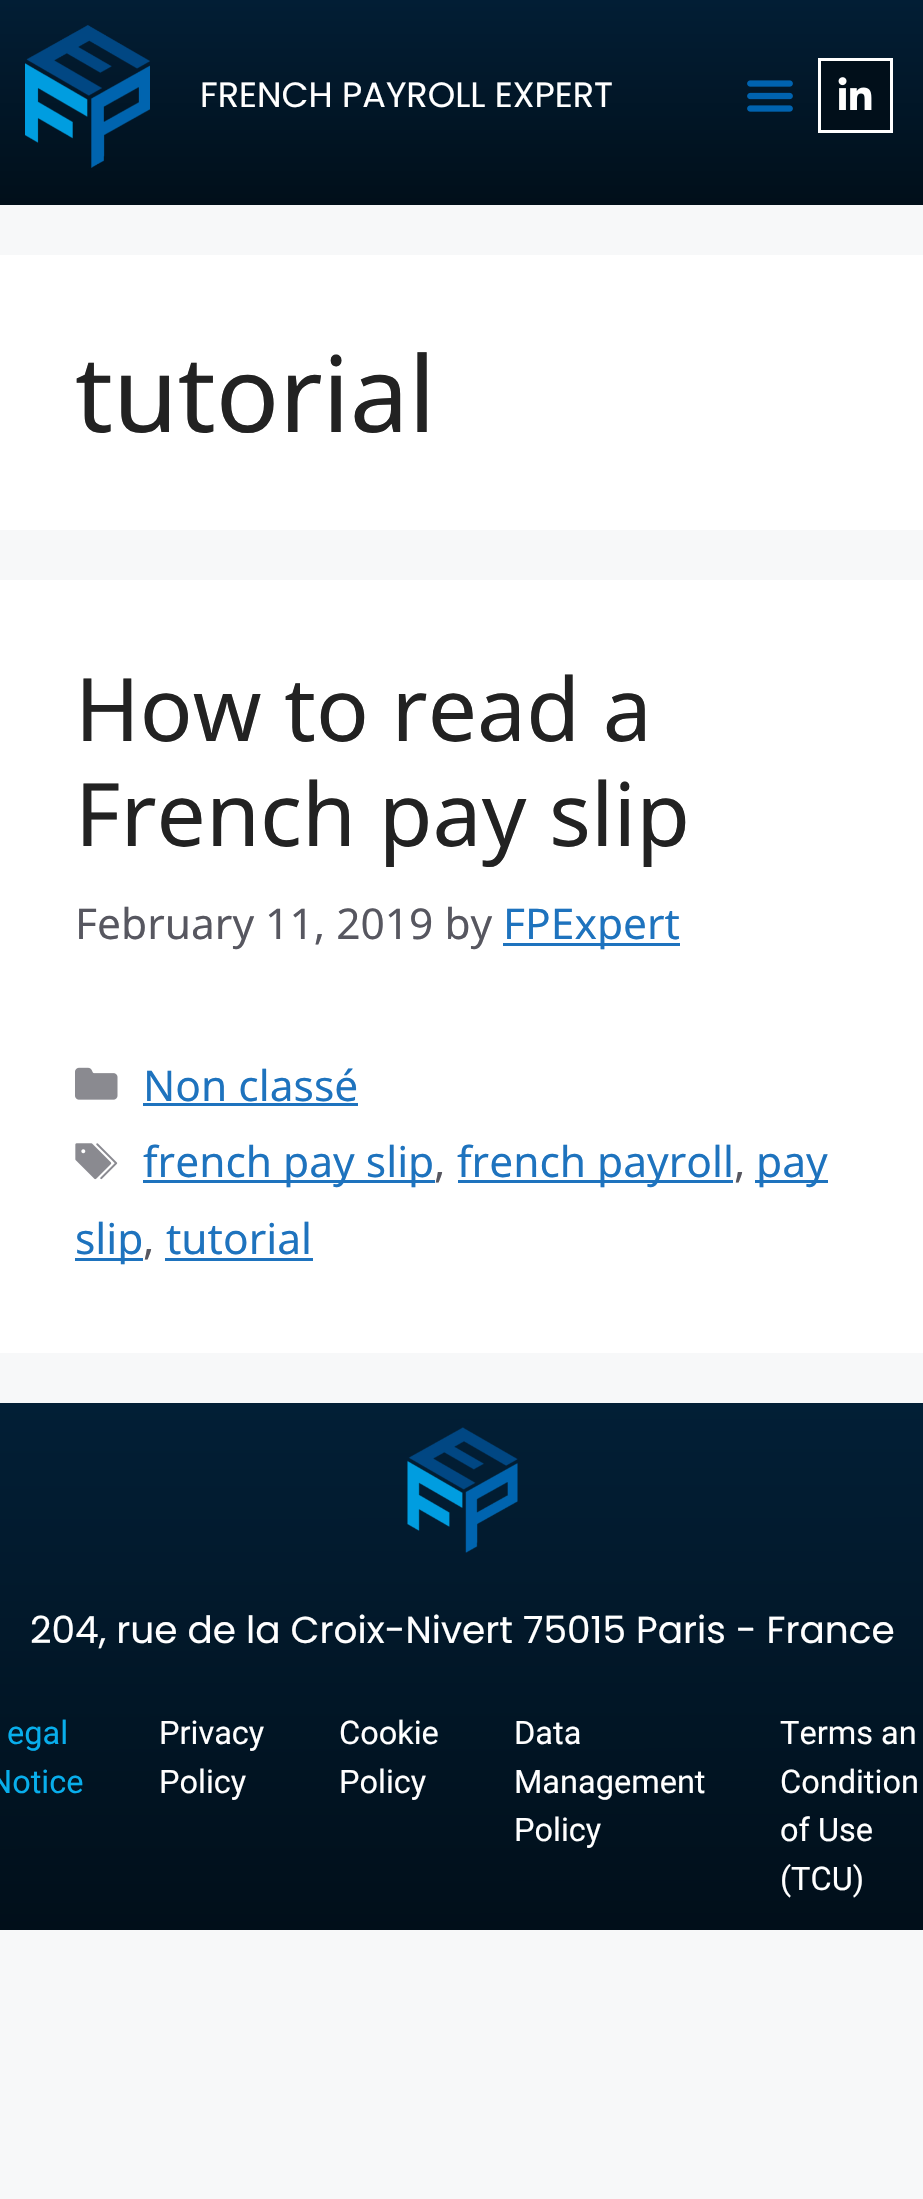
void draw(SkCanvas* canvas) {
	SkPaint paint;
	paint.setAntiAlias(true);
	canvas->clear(0xfff7f8f9);
	{
		const SkColor colors[] = {0xff010f1a, 0xff021e35};
		const float stops[] = {0, 1};
		const SkPoint ends[] = {{463, 205}, {463, 0}};
		paint.setShader(SkGradientShader::MakeLinear(ends, colors, stops, 2, SkTileMode::kClamp));
		paint.setAlpha(255);
	}
	canvas->drawRect(SkRect::MakeXYWH(0, 0, 923, 205), paint);
	canvas->drawImageRect(SkImages::DeferredFromEncodedData(SkData::MakeFromFileName("img1.png")), SkRect::MakeXYWH(25, 25, 125, 143), SkSamplingOptions());
	SkFont f1(fontMgr->matchFamilyStyle("Poppins", SkFontStyle::Normal()), 35);
	f1.setSubpixel(true);
	paint.setShader(nullptr);
	paint.setColor(0xffffffff);
	canvas->drawString("FRENCH PAYROLL EXPERT", 200, 107, f1, paint);
	canvas->drawImageRect(SkImages::DeferredFromEncodedData(SkData::MakeFromFileName("img2.png")), SkRect::MakeXYWH(747, 80, 46, 32), SkSamplingOptions());
	paint.setColor(0xff010f1a);
	canvas->drawRect(SkRect::MakeXYWH(819.5, 59.5, 72, 72), paint);
	paint.setStroke(true);
	paint.setStrokeWidth(3);
	paint.setColor(0xffffffff);
	canvas->drawRect(SkRect::MakeXYWH(819.5, 59.5, 72, 72), paint);
	canvas->drawImageRect(SkImages::DeferredFromEncodedData(SkData::MakeFromFileName("img3.png")), SkRect::MakeXYWH(838, 77, 34, 33), SkSamplingOptions());
	paint.setStroke(false);
	canvas->drawRect(SkRect::MakeXYWH(0, 255, 923, 275), paint);
	SkFont f2(fontMgr->matchFamilyStyle("Noto Sans", SkFontStyle::Normal()), 105);
	f2.setSubpixel(true);
	paint.setColor(0xff222222);
	canvas->drawString("tutorial", 75, 432, f2, paint);
	paint.setColor(0xffffffff);
	canvas->drawRect(SkRect::MakeXYWH(0, 580, 923, 773), paint);
	SkFont f3(fontMgr->matchFamilyStyle("Noto Sans", SkFontStyle::Normal()), 87.5);
	f3.setSubpixel(true);
	paint.setColor(0xff222222);
	canvas->drawString("How to read a", 75, 741, f3, paint);
	canvas->drawString("French pay slip", 75, 846, f3, paint);
	SkFont f4(fontMgr->matchFamilyStyle("Noto Sans", SkFontStyle::Normal()), 42.5);
	f4.setSubpixel(true);
	paint.setColor(0xff575760);
	canvas->drawString("February 11, 2019 by", 75, 939, f4, paint);
	paint.setColor(0xff1e73be);
	canvas->drawRect(SkRect::MakeXYWH(503, 943, 177, 3), paint);
	canvas->drawString("FPExpert", 503, 939, f4, paint);
	canvas->drawImageRect(SkImages::DeferredFromEncodedData(SkData::MakeFromFileName("img4.png")), SkRect::MakeXYWH(75, 1067, 43, 33), SkSamplingOptions());
	canvas->drawString("Non classé", 143, 1101, f4, paint);
	canvas->drawRect(SkRect::MakeXYWH(143, 1103, 215, 3), paint);
	canvas->drawImageRect(SkImages::DeferredFromEncodedData(SkData::MakeFromFileName("img5.png")), SkRect::MakeXYWH(75, 1143, 43, 37), SkSamplingOptions());
	canvas->drawRect(SkRect::MakeXYWH(143, 1180, 292, 3), paint);
	canvas->drawString("french pay slip", 143, 1177, f4, paint);
	paint.setColor(0xff575760);
	canvas->drawString(",", 434, 1177, f4, paint);
	paint.setColor(0xff1e73be);
	canvas->drawRect(SkRect::MakeXYWH(458, 1180, 275, 3), paint);
	canvas->drawString("french payroll", 457, 1177, f4, paint);
	paint.setColor(0xff575760);
	canvas->drawString(",", 734, 1177, f4, paint);
	paint.setColor(0xff1e73be);
	canvas->drawRect(SkRect::MakeXYWH(755, 1180, 73, 3), paint);
	canvas->drawString("pay", 756, 1177, f4, paint);
	canvas->drawRect(SkRect::MakeXYWH(75, 1258, 68, 3), paint);
	canvas->drawString("slip", 75, 1254, f4, paint);
	paint.setColor(0xff575760);
	canvas->drawString(",", 143, 1254, f4, paint);
	paint.setColor(0xff1e73be);
	canvas->drawString("tutorial", 166, 1254, f4, paint);
	canvas->drawRect(SkRect::MakeXYWH(165, 1258, 148, 3), paint);
	{
		const SkColor colors[] = {0xff010f1a, 0xff021f36};
		const float stops[] = {0, 1};
		const SkPoint ends[] = {{463, 1930}, {462, 1403}};
		paint.setShader(SkGradientShader::MakeLinear(ends, colors, stops, 2, SkTileMode::kClamp));
		paint.setAlpha(255);
	}
	canvas->drawRect(SkRect::MakeXYWH(0, 1403, 923, 527), paint);
	canvas->drawImageRect(SkImages::DeferredFromEncodedData(SkData::MakeFromFileName("img6.png")), SkRect::MakeXYWH(407, 1427, 111, 126), SkSamplingOptions());
	SkFont f5(fontMgr->matchFamilyStyle("Poppins", SkFontStyle::Normal()), 37.5);
	f5.setSubpixel(true);
	paint.setShader(nullptr);
	paint.setColor(0xffffffff);
	canvas->drawString("204, rue de la Croix-Nivert 75015 Paris - France", 30, 1643, f5, paint);
	SkFont f6(fontMgr->matchFamilyStyle("Roboto", SkFontStyle::Normal()), 32.5);
	f6.setSubpixel(true);
	paint.setColor(0xff08aeec);
	canvas->drawString("egal", 7, 1744, f6, paint);
	canvas->drawString("Notice", -11, 1793, f6, paint);
	paint.setColor(0xffffffff);
	canvas->drawString("Privacy", 159, 1744, f6, paint);
	canvas->drawString("Policy", 159, 1793, f6, paint);
	canvas->drawString("Cookie", 339, 1744, f6, paint);
	canvas->drawString("Policy", 339, 1793, f6, paint);
	canvas->drawString("Data", 514, 1744, f6, paint);
	canvas->drawString("Management", 514, 1793, f6, paint);
	canvas->drawString("Policy", 514, 1841, f6, paint);
	canvas->drawString("Terms an", 780, 1744, f6, paint);
	canvas->drawString("Condition", 780, 1793, f6, paint);
	canvas->drawString("of Use", 780, 1841, f6, paint);
	canvas->drawString("(TCU)", 780, 1890, f6, paint);
}
